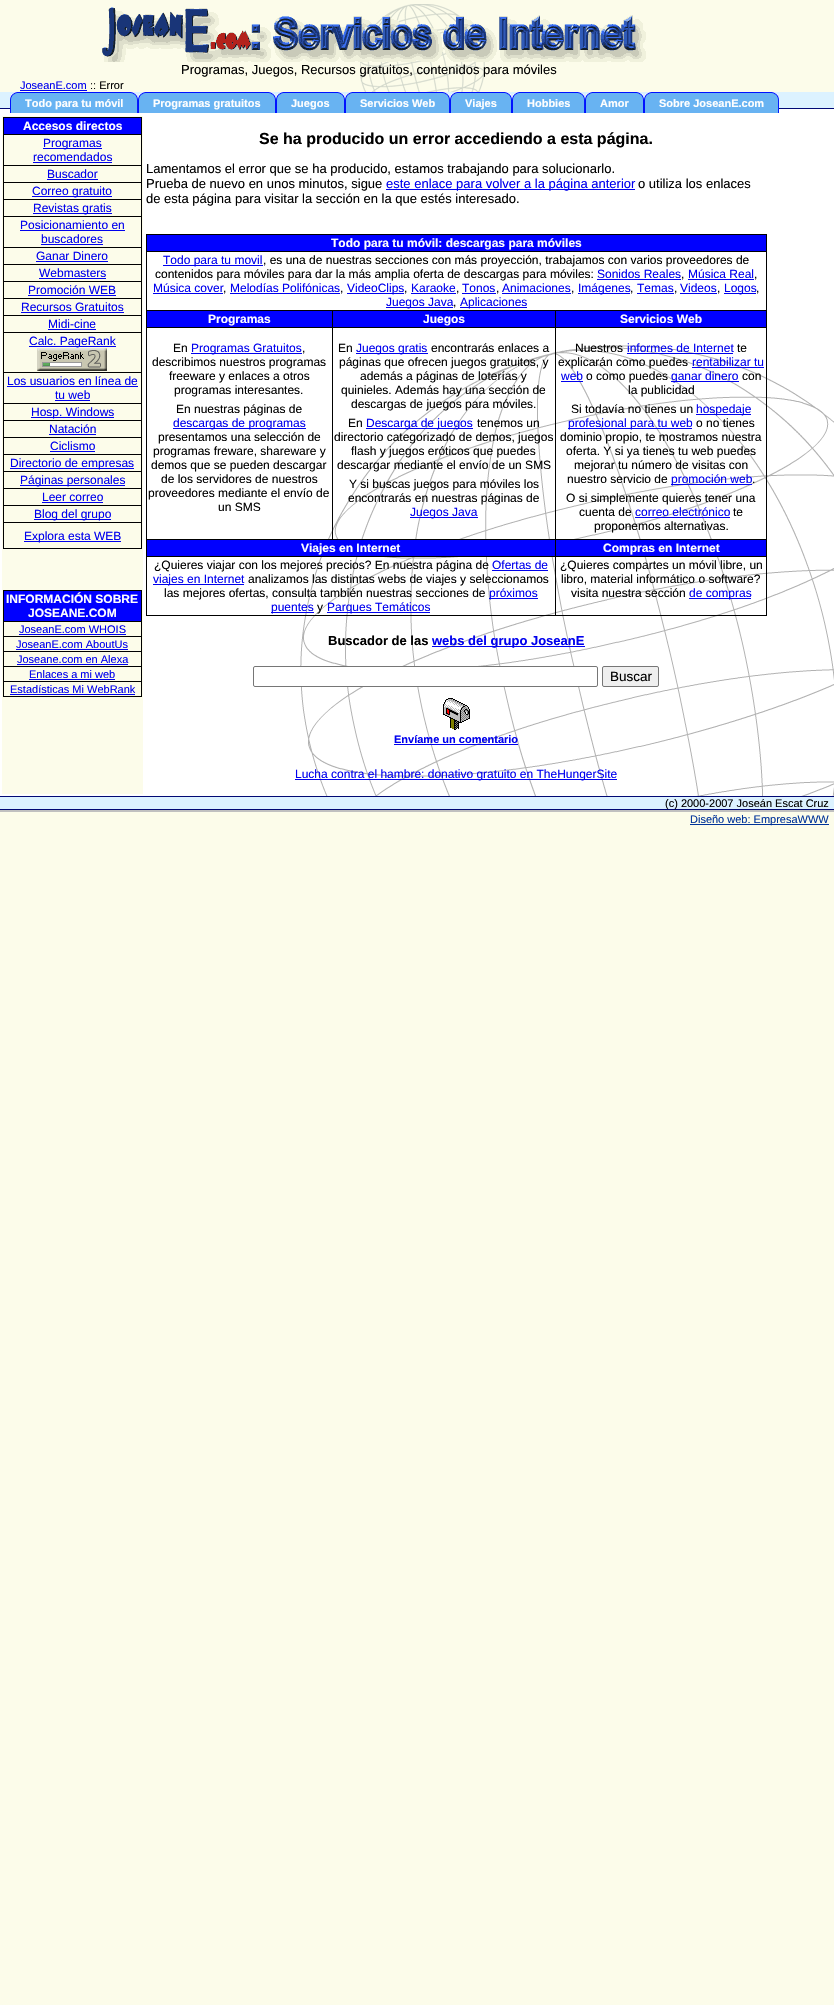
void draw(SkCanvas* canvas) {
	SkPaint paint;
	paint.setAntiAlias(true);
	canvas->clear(0xfffcfcea);
	canvas->drawImageRect(SkImages::DeferredFromEncodedData(SkData::MakeFromFileName("img1.png")), SkRect::MakeXYWH(360, 4, 125, 88), SkSamplingOptions());
	canvas->drawImageRect(SkImages::DeferredFromEncodedData(SkData::MakeFromFileName("img2.png")), SkRect::MakeXYWH(102, 7, 544, 55), SkSamplingOptions());
	SkFont f1(fontMgr->matchFamilyStyle("Liberation Sans", SkFontStyle::Normal()), 13);
	f1.setSubpixel(true);
	paint.setColor(0xff000000);
	canvas->drawString("Programas, Juegos, Recursos gratuitos, contenidos para móviles", 181, 74, f1, paint);
	SkFont f2(fontMgr->matchFamilyStyle("Liberation Sans", SkFontStyle::Normal()), 11);
	f2.setSubpixel(true);
	paint.setColor(0xff0000ee);
	canvas->drawString("JoseanE.com", 20, 89, f2, paint);
	canvas->drawRect(SkRect::MakeXYWH(20, 90, 67, 1), paint);
	paint.setColor(0xff000000);
	canvas->drawString(":: Error", 90, 89, f2, paint);
	paint.setColor(0xffdcf2ff);
	canvas->drawRect(SkRect::MakeXYWH(0, 92, 834, 16), paint);
	paint.setColor(0xff010974);
	canvas->drawRect(SkRect::MakeXYWH(0, 108, 834, 1), paint);
	paint.setColor(0xffffffff);
	canvas->drawRect(SkRect::MakeXYWH(0, 109, 834, 687), paint);
	canvas->drawImageRect(SkImages::DeferredFromEncodedData(SkData::MakeFromFileName("img3.png")), SkRect::MakeXYWH(10, 92, 9, 21), SkSamplingOptions());
	canvas->drawImageRect(SkImages::DeferredFromEncodedData(SkData::MakeFromFileName("img4.png")), SkRect::MakeXYWH(19, 92, 119, 21), SkSamplingOptions());
	SkFont f3(fontMgr->matchFamilyStyle("Liberation Sans", SkFontStyle::Bold()), 11);
	f3.setSubpixel(true);
	canvas->drawString("Todo para tu móvil", 25, 107, f3, paint);
	canvas->drawImageRect(SkImages::DeferredFromEncodedData(SkData::MakeFromFileName("img3.png")), SkRect::MakeXYWH(138, 92, 9, 21), SkSamplingOptions());
	canvas->drawImageRect(SkImages::DeferredFromEncodedData(SkData::MakeFromFileName("img5.png")), SkRect::MakeXYWH(147, 92, 129, 21), SkSamplingOptions());
	canvas->drawString("Programas gratuitos", 153, 107, f3, paint);
	canvas->drawImageRect(SkImages::DeferredFromEncodedData(SkData::MakeFromFileName("img3.png")), SkRect::MakeXYWH(276, 92, 9, 21), SkSamplingOptions());
	canvas->drawImageRect(SkImages::DeferredFromEncodedData(SkData::MakeFromFileName("img6.png")), SkRect::MakeXYWH(285, 92, 60, 21), SkSamplingOptions());
	canvas->drawString("Juegos", 291, 107, f3, paint);
	canvas->drawImageRect(SkImages::DeferredFromEncodedData(SkData::MakeFromFileName("img3.png")), SkRect::MakeXYWH(345, 92, 9, 21), SkSamplingOptions());
	canvas->drawImageRect(SkImages::DeferredFromEncodedData(SkData::MakeFromFileName("img7.png")), SkRect::MakeXYWH(354, 92, 96, 21), SkSamplingOptions());
	canvas->drawString("Servicios Web", 360, 107, f3, paint);
	canvas->drawImageRect(SkImages::DeferredFromEncodedData(SkData::MakeFromFileName("img3.png")), SkRect::MakeXYWH(450, 92, 9, 21), SkSamplingOptions());
	canvas->drawImageRect(SkImages::DeferredFromEncodedData(SkData::MakeFromFileName("img8.png")), SkRect::MakeXYWH(459, 92, 53, 21), SkSamplingOptions());
	canvas->drawString("Viajes", 465, 107, f3, paint);
	canvas->drawImageRect(SkImages::DeferredFromEncodedData(SkData::MakeFromFileName("img3.png")), SkRect::MakeXYWH(512, 92, 9, 21), SkSamplingOptions());
	canvas->drawImageRect(SkImages::DeferredFromEncodedData(SkData::MakeFromFileName("img9.png")), SkRect::MakeXYWH(521, 92, 64, 21), SkSamplingOptions());
	canvas->drawString("Hobbies", 527, 107, f3, paint);
	canvas->drawImageRect(SkImages::DeferredFromEncodedData(SkData::MakeFromFileName("img3.png")), SkRect::MakeXYWH(585, 92, 9, 21), SkSamplingOptions());
	canvas->drawImageRect(SkImages::DeferredFromEncodedData(SkData::MakeFromFileName("img10.png")), SkRect::MakeXYWH(594, 92, 50, 21), SkSamplingOptions());
	canvas->drawString("Amor", 600, 107, f3, paint);
	canvas->drawImageRect(SkImages::DeferredFromEncodedData(SkData::MakeFromFileName("img3.png")), SkRect::MakeXYWH(644, 92, 9, 21), SkSamplingOptions());
	canvas->drawImageRect(SkImages::DeferredFromEncodedData(SkData::MakeFromFileName("img11.png")), SkRect::MakeXYWH(653, 92, 126, 21), SkSamplingOptions());
	canvas->drawString("Sobre JoseanE.com", 659, 107, f3, paint);
	canvas->drawImageRect(SkImages::DeferredFromEncodedData(SkData::MakeFromFileName("img12.png")), SkRect::MakeXYWH(300, 345, 534, 451), SkSamplingOptions());
	paint.setColor(0xfffcfcea);
	canvas->drawRect(SkRect::MakeXYWH(2, 116, 141, 678), paint);
	paint.setColor(0xff0000ff);
	canvas->drawRect(SkRect::MakeXYWH(4, 118, 137, 16), paint);
	paint.setColor(0xff000000);
	canvas->drawRect(SkRect::MakeXYWH(3, 117, 139, 1), paint);
	canvas->drawRect(SkRect::MakeXYWH(3, 134, 139, 1), paint);
	canvas->drawRect(SkRect::MakeXYWH(3, 165, 139, 1), paint);
	canvas->drawRect(SkRect::MakeXYWH(3, 182, 139, 1), paint);
	canvas->drawRect(SkRect::MakeXYWH(3, 199, 139, 1), paint);
	canvas->drawRect(SkRect::MakeXYWH(3, 216, 139, 1), paint);
	canvas->drawRect(SkRect::MakeXYWH(3, 247, 139, 1), paint);
	canvas->drawRect(SkRect::MakeXYWH(3, 264, 139, 1), paint);
	canvas->drawRect(SkRect::MakeXYWH(3, 281, 139, 1), paint);
	canvas->drawRect(SkRect::MakeXYWH(3, 298, 139, 1), paint);
	canvas->drawRect(SkRect::MakeXYWH(3, 315, 139, 1), paint);
	canvas->drawRect(SkRect::MakeXYWH(3, 332, 139, 1), paint);
	canvas->drawRect(SkRect::MakeXYWH(3, 372, 139, 1), paint);
	canvas->drawRect(SkRect::MakeXYWH(3, 403, 139, 1), paint);
	canvas->drawRect(SkRect::MakeXYWH(3, 420, 139, 1), paint);
	canvas->drawRect(SkRect::MakeXYWH(3, 437, 139, 1), paint);
	canvas->drawRect(SkRect::MakeXYWH(3, 454, 139, 1), paint);
	canvas->drawRect(SkRect::MakeXYWH(3, 471, 139, 1), paint);
	canvas->drawRect(SkRect::MakeXYWH(3, 488, 139, 1), paint);
	canvas->drawRect(SkRect::MakeXYWH(3, 505, 139, 1), paint);
	canvas->drawRect(SkRect::MakeXYWH(3, 522, 139, 1), paint);
	canvas->drawRect(SkRect::MakeXYWH(141, 522, 1, 27), paint);
	canvas->drawRect(SkRect::MakeXYWH(141, 505, 1, 18), paint);
	canvas->drawRect(SkRect::MakeXYWH(141, 488, 1, 18), paint);
	canvas->drawRect(SkRect::MakeXYWH(141, 471, 1, 18), paint);
	canvas->drawRect(SkRect::MakeXYWH(141, 454, 1, 18), paint);
	canvas->drawRect(SkRect::MakeXYWH(141, 437, 1, 18), paint);
	canvas->drawRect(SkRect::MakeXYWH(141, 420, 1, 18), paint);
	canvas->drawRect(SkRect::MakeXYWH(141, 403, 1, 18), paint);
	canvas->drawRect(SkRect::MakeXYWH(141, 372, 1, 32), paint);
	canvas->drawRect(SkRect::MakeXYWH(141, 332, 1, 41), paint);
	canvas->drawRect(SkRect::MakeXYWH(141, 315, 1, 18), paint);
	canvas->drawRect(SkRect::MakeXYWH(141, 298, 1, 18), paint);
	canvas->drawRect(SkRect::MakeXYWH(141, 281, 1, 18), paint);
	canvas->drawRect(SkRect::MakeXYWH(141, 264, 1, 18), paint);
	canvas->drawRect(SkRect::MakeXYWH(141, 247, 1, 18), paint);
	canvas->drawRect(SkRect::MakeXYWH(141, 216, 1, 32), paint);
	canvas->drawRect(SkRect::MakeXYWH(141, 199, 1, 18), paint);
	canvas->drawRect(SkRect::MakeXYWH(141, 182, 1, 18), paint);
	canvas->drawRect(SkRect::MakeXYWH(141, 165, 1, 18), paint);
	canvas->drawRect(SkRect::MakeXYWH(141, 134, 1, 32), paint);
	canvas->drawRect(SkRect::MakeXYWH(141, 117, 1, 18), paint);
	canvas->drawRect(SkRect::MakeXYWH(3, 548, 139, 1), paint);
	canvas->drawRect(SkRect::MakeXYWH(3, 522, 1, 27), paint);
	canvas->drawRect(SkRect::MakeXYWH(3, 505, 1, 18), paint);
	canvas->drawRect(SkRect::MakeXYWH(3, 488, 1, 18), paint);
	canvas->drawRect(SkRect::MakeXYWH(3, 471, 1, 18), paint);
	canvas->drawRect(SkRect::MakeXYWH(3, 454, 1, 18), paint);
	canvas->drawRect(SkRect::MakeXYWH(3, 437, 1, 18), paint);
	canvas->drawRect(SkRect::MakeXYWH(3, 420, 1, 18), paint);
	canvas->drawRect(SkRect::MakeXYWH(3, 403, 1, 18), paint);
	canvas->drawRect(SkRect::MakeXYWH(3, 372, 1, 32), paint);
	canvas->drawRect(SkRect::MakeXYWH(3, 332, 1, 41), paint);
	canvas->drawRect(SkRect::MakeXYWH(3, 315, 1, 18), paint);
	canvas->drawRect(SkRect::MakeXYWH(3, 298, 1, 18), paint);
	canvas->drawRect(SkRect::MakeXYWH(3, 281, 1, 18), paint);
	canvas->drawRect(SkRect::MakeXYWH(3, 264, 1, 18), paint);
	canvas->drawRect(SkRect::MakeXYWH(3, 247, 1, 18), paint);
	canvas->drawRect(SkRect::MakeXYWH(3, 216, 1, 32), paint);
	canvas->drawRect(SkRect::MakeXYWH(3, 199, 1, 18), paint);
	canvas->drawRect(SkRect::MakeXYWH(3, 182, 1, 18), paint);
	canvas->drawRect(SkRect::MakeXYWH(3, 165, 1, 18), paint);
	canvas->drawRect(SkRect::MakeXYWH(3, 134, 1, 32), paint);
	canvas->drawRect(SkRect::MakeXYWH(3, 117, 1, 18), paint);
	SkFont f4(fontMgr->matchFamilyStyle("Liberation Sans", SkFontStyle::Bold()), 12);
	f4.setSubpixel(true);
	paint.setColor(0xffffffff);
	canvas->drawString("Accesos directos", 23, 130, f4, paint);
	paint.setColor(0xff0000ee);
	canvas->drawRect(SkRect::MakeXYWH(43, 148, 59, 1), paint);
	SkFont f5(fontMgr->matchFamilyStyle("Liberation Sans", SkFontStyle::Normal()), 12);
	f5.setSubpixel(true);
	canvas->drawString("Programas", 43, 147, f5, paint);
	canvas->drawString("recomendados", 33, 161, f5, paint);
	canvas->drawRect(SkRect::MakeXYWH(33, 162, 79, 1), paint);
	canvas->drawString("Buscador", 47, 178, f5, paint);
	canvas->drawRect(SkRect::MakeXYWH(47, 179, 51, 1), paint);
	canvas->drawRect(SkRect::MakeXYWH(32, 196, 80, 1), paint);
	canvas->drawString("Correo gratuito", 32, 195, f5, paint);
	canvas->drawRect(SkRect::MakeXYWH(33, 213, 79, 1), paint);
	canvas->drawString("Revistas gratis", 33, 212, f5, paint);
	canvas->drawString("Posicionamiento en", 20, 229, f5, paint);
	canvas->drawRect(SkRect::MakeXYWH(20, 230, 105, 1), paint);
	canvas->drawString("buscadores", 41, 243, f5, paint);
	canvas->drawRect(SkRect::MakeXYWH(41, 244, 62, 1), paint);
	canvas->drawString("Ganar Dinero", 36, 260, f5, paint);
	canvas->drawRect(SkRect::MakeXYWH(36, 261, 72, 1), paint);
	canvas->drawString("Webmasters", 39, 277, f5, paint);
	canvas->drawRect(SkRect::MakeXYWH(39, 278, 67, 1), paint);
	canvas->drawString("Promoción WEB", 28, 294, f5, paint);
	canvas->drawRect(SkRect::MakeXYWH(28, 295, 88, 1), paint);
	canvas->drawString("Recursos Gratuitos", 21, 311, f5, paint);
	canvas->drawRect(SkRect::MakeXYWH(21, 312, 103, 1), paint);
	canvas->drawString("Midi-cine", 48, 328, f5, paint);
	canvas->drawRect(SkRect::MakeXYWH(48, 329, 48, 1), paint);
	canvas->drawRect(SkRect::MakeXYWH(29, 346, 87, 1), paint);
	canvas->drawString("Calc. PageRank", 29, 345, f5, paint);
	canvas->drawImageRect(SkImages::DeferredFromEncodedData(SkData::MakeFromFileName("img13.png")), SkRect::MakeXYWH(37, 348, 70, 23), SkSamplingOptions());
	canvas->drawString("Los usuarios en línea de", 7, 385, f5, paint);
	canvas->drawRect(SkRect::MakeXYWH(7, 386, 131, 1), paint);
	canvas->drawString("tu web", 55, 399, f5, paint);
	canvas->drawRect(SkRect::MakeXYWH(55, 400, 35, 1), paint);
	canvas->drawRect(SkRect::MakeXYWH(31, 417, 83, 1), paint);
	canvas->drawString("Hosp. Windows", 31, 416, f5, paint);
	canvas->drawString("Natación", 49, 433, f5, paint);
	canvas->drawRect(SkRect::MakeXYWH(49, 434, 47, 1), paint);
	canvas->drawString("Ciclismo", 50, 450, f5, paint);
	canvas->drawRect(SkRect::MakeXYWH(50, 451, 45, 1), paint);
	canvas->drawRect(SkRect::MakeXYWH(10, 468, 124, 1), paint);
	canvas->drawString("Directorio de empresas", 10, 467, f5, paint);
	canvas->drawRect(SkRect::MakeXYWH(20, 485, 105, 1), paint);
	canvas->drawString("Páginas personales", 20, 484, f5, paint);
	canvas->drawString("Leer correo", 42, 501, f5, paint);
	canvas->drawRect(SkRect::MakeXYWH(42, 502, 61, 1), paint);
	canvas->drawRect(SkRect::MakeXYWH(34, 519, 77, 1), paint);
	canvas->drawString("Blog del grupo", 34, 518, f5, paint);
	canvas->drawRect(SkRect::MakeXYWH(24, 541, 97, 1), paint);
	canvas->drawString("Explora esta WEB", 24, 540, f5, paint);
	paint.setColor(0xff0000ff);
	canvas->drawRect(SkRect::MakeXYWH(4, 591, 137, 30), paint);
	paint.setColor(0xff000000);
	canvas->drawRect(SkRect::MakeXYWH(3, 590, 139, 1), paint);
	canvas->drawRect(SkRect::MakeXYWH(3, 621, 139, 1), paint);
	canvas->drawRect(SkRect::MakeXYWH(3, 636, 139, 1), paint);
	canvas->drawRect(SkRect::MakeXYWH(3, 651, 139, 1), paint);
	canvas->drawRect(SkRect::MakeXYWH(3, 666, 139, 1), paint);
	canvas->drawRect(SkRect::MakeXYWH(3, 681, 139, 1), paint);
	canvas->drawRect(SkRect::MakeXYWH(141, 681, 1, 16), paint);
	canvas->drawRect(SkRect::MakeXYWH(141, 666, 1, 16), paint);
	canvas->drawRect(SkRect::MakeXYWH(141, 651, 1, 16), paint);
	canvas->drawRect(SkRect::MakeXYWH(141, 636, 1, 16), paint);
	canvas->drawRect(SkRect::MakeXYWH(141, 621, 1, 16), paint);
	canvas->drawRect(SkRect::MakeXYWH(141, 590, 1, 32), paint);
	canvas->drawRect(SkRect::MakeXYWH(3, 696, 139, 1), paint);
	canvas->drawRect(SkRect::MakeXYWH(3, 681, 1, 16), paint);
	canvas->drawRect(SkRect::MakeXYWH(3, 666, 1, 16), paint);
	canvas->drawRect(SkRect::MakeXYWH(3, 651, 1, 16), paint);
	canvas->drawRect(SkRect::MakeXYWH(3, 636, 1, 16), paint);
	canvas->drawRect(SkRect::MakeXYWH(3, 621, 1, 16), paint);
	canvas->drawRect(SkRect::MakeXYWH(3, 590, 1, 32), paint);
	paint.setColor(0xffffffff);
	canvas->drawString("INFORMACIÓN SOBRE", 6, 603, f4, paint);
	canvas->drawString("JOSEANE.COM", 28, 617, f4, paint);
	paint.setColor(0xff0000ee);
	canvas->drawString("JoseanE.com WHOIS", 19, 633, f2, paint);
	canvas->drawRect(SkRect::MakeXYWH(19, 634, 107, 1), paint);
	canvas->drawString("JoseanE.com AboutUs", 16, 648, f2, paint);
	canvas->drawRect(SkRect::MakeXYWH(16, 649, 112, 1), paint);
	canvas->drawString("Joseane.com en Alexa", 17, 663, f2, paint);
	canvas->drawRect(SkRect::MakeXYWH(17, 664, 111, 1), paint);
	canvas->drawString("Enlaces a mi web", 29, 678, f2, paint);
	canvas->drawRect(SkRect::MakeXYWH(29, 679, 86, 1), paint);
	canvas->drawString("Estadísticas Mi WebRank", 10, 693, f2, paint);
	canvas->drawRect(SkRect::MakeXYWH(10, 694, 125, 1), paint);
	SkFont f6(fontMgr->matchFamilyStyle("Liberation Sans", SkFontStyle::Bold()), 16);
	f6.setSubpixel(true);
	paint.setColor(0xff000000);
	canvas->drawString("Se ha producido un error accediendo a esta página.", 259, 144, f6, paint);
	canvas->drawString("Lamentamos el error que se ha producido, estamos trabajando para solucionarlo.", 146, 173, f1, paint);
	canvas->drawString("Prueba de nuevo en unos minutos, sigue", 146, 188, f1, paint);
	paint.setColor(0xff0000ee);
	canvas->drawRect(SkRect::MakeXYWH(386, 189, 249, 1), paint);
	canvas->drawString("este enlace para volver a la página anterior", 386, 188, f1, paint);
	paint.setColor(0xff000000);
	canvas->drawString("o utiliza los enlaces", 638, 188, f1, paint);
	canvas->drawString("de esta página para visitar la sección en la que estés interesado.", 146, 203, f1, paint);
	paint.setColor(0xff0000ff);
	canvas->drawRect(SkRect::MakeXYWH(147, 235, 619, 16), paint);
	paint.setColor(0xff000000);
	canvas->drawRect(SkRect::MakeXYWH(146, 234, 621, 1), paint);
	canvas->drawRect(SkRect::MakeXYWH(146, 251, 621, 1), paint);
	canvas->drawRect(SkRect::MakeXYWH(555, 310, 212, 1), paint);
	canvas->drawRect(SkRect::MakeXYWH(555, 327, 212, 1), paint);
	canvas->drawRect(SkRect::MakeXYWH(555, 539, 212, 1), paint);
	canvas->drawRect(SkRect::MakeXYWH(555, 556, 212, 1), paint);
	canvas->drawRect(SkRect::MakeXYWH(766, 556, 1, 60), paint);
	canvas->drawRect(SkRect::MakeXYWH(766, 539, 1, 18), paint);
	canvas->drawRect(SkRect::MakeXYWH(766, 327, 1, 213), paint);
	canvas->drawRect(SkRect::MakeXYWH(766, 310, 1, 18), paint);
	canvas->drawRect(SkRect::MakeXYWH(766, 251, 1, 60), paint);
	canvas->drawRect(SkRect::MakeXYWH(766, 234, 1, 18), paint);
	canvas->drawRect(SkRect::MakeXYWH(555, 615, 212, 1), paint);
	canvas->drawRect(SkRect::MakeXYWH(555, 556, 1, 60), paint);
	canvas->drawRect(SkRect::MakeXYWH(146, 556, 410, 1), paint);
	canvas->drawRect(SkRect::MakeXYWH(555, 539, 1, 18), paint);
	canvas->drawRect(SkRect::MakeXYWH(146, 539, 410, 1), paint);
	canvas->drawRect(SkRect::MakeXYWH(555, 327, 1, 213), paint);
	canvas->drawRect(SkRect::MakeXYWH(332, 327, 224, 1), paint);
	canvas->drawRect(SkRect::MakeXYWH(555, 310, 1, 18), paint);
	canvas->drawRect(SkRect::MakeXYWH(332, 310, 224, 1), paint);
	canvas->drawRect(SkRect::MakeXYWH(332, 327, 1, 213), paint);
	canvas->drawRect(SkRect::MakeXYWH(146, 327, 187, 1), paint);
	canvas->drawRect(SkRect::MakeXYWH(332, 310, 1, 18), paint);
	canvas->drawRect(SkRect::MakeXYWH(146, 310, 187, 1), paint);
	canvas->drawRect(SkRect::MakeXYWH(146, 615, 410, 1), paint);
	canvas->drawRect(SkRect::MakeXYWH(146, 556, 1, 60), paint);
	canvas->drawRect(SkRect::MakeXYWH(146, 539, 1, 18), paint);
	canvas->drawRect(SkRect::MakeXYWH(146, 327, 1, 213), paint);
	canvas->drawRect(SkRect::MakeXYWH(146, 310, 1, 18), paint);
	canvas->drawRect(SkRect::MakeXYWH(146, 251, 1, 60), paint);
	canvas->drawRect(SkRect::MakeXYWH(146, 234, 1, 18), paint);
	paint.setColor(0xffffffff);
	canvas->drawString("Todo para tu móvil: descargas para móviles", 331, 247, f4, paint);
	paint.setColor(0xff0000ee);
	canvas->drawRect(SkRect::MakeXYWH(163, 265, 100, 1), paint);
	canvas->drawString("Todo para tu movil", 163, 264, f5, paint);
	paint.setColor(0xff000000);
	canvas->drawString(", es una de nuestras secciones con más proyección, trabajamos con varios proveedores de", 263, 264, f5, paint);
	canvas->drawString("contenidos para móviles para dar la más amplia oferta de descargas para móviles:", 155, 278, f5, paint);
	paint.setColor(0xff0000ee);
	canvas->drawString("Sonidos Reales", 597, 278, f5, paint);
	canvas->drawRect(SkRect::MakeXYWH(597, 279, 84, 1), paint);
	paint.setColor(0xff000000);
	canvas->drawString(",", 681, 278, f5, paint);
	paint.setColor(0xff0000ee);
	canvas->drawString("Música Real", 688, 278, f5, paint);
	canvas->drawRect(SkRect::MakeXYWH(688, 279, 66, 1), paint);
	paint.setColor(0xff000000);
	canvas->drawString(",", 754, 278, f5, paint);
	paint.setColor(0xff0000ee);
	canvas->drawString("Música cover", 153, 292, f5, paint);
	canvas->drawRect(SkRect::MakeXYWH(153, 293, 70, 1), paint);
	paint.setColor(0xff000000);
	canvas->drawString(",", 223, 292, f5, paint);
	paint.setColor(0xff0000ee);
	canvas->drawString("Melodías Polifónicas", 230, 292, f5, paint);
	canvas->drawRect(SkRect::MakeXYWH(230, 293, 110, 1), paint);
	paint.setColor(0xff000000);
	canvas->drawString(",", 340, 292, f5, paint);
	paint.setColor(0xff0000ee);
	canvas->drawRect(SkRect::MakeXYWH(347, 293, 57, 1), paint);
	canvas->drawString("VideoClips", 347, 292, f5, paint);
	paint.setColor(0xff000000);
	canvas->drawString(",", 404, 292, f5, paint);
	paint.setColor(0xff0000ee);
	canvas->drawString("Karaoke", 411, 292, f5, paint);
	canvas->drawRect(SkRect::MakeXYWH(411, 293, 45, 1), paint);
	paint.setColor(0xff000000);
	canvas->drawString(",", 456, 292, f5, paint);
	paint.setColor(0xff0000ee);
	canvas->drawString("Tonos", 462, 292, f5, paint);
	canvas->drawRect(SkRect::MakeXYWH(462, 293, 34, 1), paint);
	paint.setColor(0xff000000);
	canvas->drawString(",", 496, 292, f5, paint);
	paint.setColor(0xff0000ee);
	canvas->drawString("Animaciones", 502, 292, f5, paint);
	canvas->drawRect(SkRect::MakeXYWH(502, 293, 69, 1), paint);
	paint.setColor(0xff000000);
	canvas->drawString(",", 571, 292, f5, paint);
	paint.setColor(0xff0000ee);
	canvas->drawRect(SkRect::MakeXYWH(578, 293, 52, 1), paint);
	canvas->drawString("Imágenes", 578, 292, f5, paint);
	paint.setColor(0xff000000);
	canvas->drawString(",", 630, 292, f5, paint);
	paint.setColor(0xff0000ee);
	canvas->drawString("Temas", 637, 292, f5, paint);
	canvas->drawRect(SkRect::MakeXYWH(637, 293, 37, 1), paint);
	paint.setColor(0xff000000);
	canvas->drawString(",", 674, 292, f5, paint);
	paint.setColor(0xff0000ee);
	canvas->drawString("Videos", 680, 292, f5, paint);
	canvas->drawRect(SkRect::MakeXYWH(680, 293, 37, 1), paint);
	paint.setColor(0xff000000);
	canvas->drawString(",", 717, 292, f5, paint);
	paint.setColor(0xff0000ee);
	canvas->drawRect(SkRect::MakeXYWH(724, 293, 32, 1), paint);
	canvas->drawString("Logos", 724, 292, f5, paint);
	paint.setColor(0xff000000);
	canvas->drawString(",", 756, 292, f5, paint);
	paint.setColor(0xff0000ee);
	canvas->drawRect(SkRect::MakeXYWH(386, 307, 67, 1), paint);
	canvas->drawString("Juegos Java", 386, 306, f5, paint);
	paint.setColor(0xff000000);
	canvas->drawString(",", 453, 306, f5, paint);
	paint.setColor(0xff0000ee);
	canvas->drawRect(SkRect::MakeXYWH(460, 307, 67, 1), paint);
	canvas->drawString("Aplicaciones", 460, 306, f5, paint);
	paint.setColor(0xff0000ff);
	canvas->drawRect(SkRect::MakeXYWH(147, 311, 185, 16), paint);
	paint.setColor(0xffffffff);
	canvas->drawString("Programas", 208, 323, f4, paint);
	paint.setColor(0xff0000ff);
	canvas->drawRect(SkRect::MakeXYWH(333, 311, 222, 16), paint);
	paint.setColor(0xffffffff);
	canvas->drawString("Juegos", 423, 323, f4, paint);
	paint.setColor(0xff0000ff);
	canvas->drawRect(SkRect::MakeXYWH(556, 311, 210, 16), paint);
	paint.setColor(0xffffffff);
	canvas->drawString("Servicios Web", 620, 323, f4, paint);
	paint.setColor(0xff000000);
	canvas->drawString("En", 173, 352, f5, paint);
	paint.setColor(0xff0000ee);
	canvas->drawRect(SkRect::MakeXYWH(191, 353, 111, 1), paint);
	canvas->drawString("Programas Gratuitos", 191, 352, f5, paint);
	paint.setColor(0xff000000);
	canvas->drawString(",", 302, 352, f5, paint);
	canvas->drawString("describimos nuestros programas", 152, 366, f5, paint);
	canvas->drawString("freeware y enlaces a otros", 169, 380, f5, paint);
	canvas->drawString("programas interesantes.", 174, 394, f5, paint);
	canvas->drawString("En nuestras páginas de", 176, 413, f5, paint);
	paint.setColor(0xff0000ee);
	canvas->drawRect(SkRect::MakeXYWH(173, 428, 133, 1), paint);
	canvas->drawString("descargas de programas", 173, 427, f5, paint);
	paint.setColor(0xff000000);
	canvas->drawString("presentamos una selección de", 158, 441, f5, paint);
	canvas->drawString("programas freware, shareware y", 153, 455, f5, paint);
	canvas->drawString("demos que se pueden descargar", 151, 469, f5, paint);
	canvas->drawString("de los servidores de nuestros", 161, 483, f5, paint);
	canvas->drawString("proveedores mediante el envío de", 148, 497, f5, paint);
	canvas->drawString("un SMS", 218, 511, f5, paint);
	canvas->drawString("En", 338, 352, f5, paint);
	paint.setColor(0xff0000ee);
	canvas->drawRect(SkRect::MakeXYWH(356, 353, 72, 1), paint);
	canvas->drawString("Juegos gratis", 356, 352, f5, paint);
	paint.setColor(0xff000000);
	canvas->drawString("encontrarás enlaces a", 431, 352, f5, paint);
	canvas->drawString("páginas que ofrecen juegos gratuitos, y", 339, 366, f5, paint);
	canvas->drawString("además a páginas de loterías y", 360, 380, f5, paint);
	canvas->drawString("quinieles. Además hay una sección de", 341, 394, f5, paint);
	canvas->drawString("descargas de juegos para móviles.", 351, 408, f5, paint);
	canvas->drawString("En", 348, 427, f5, paint);
	paint.setColor(0xff0000ee);
	canvas->drawRect(SkRect::MakeXYWH(366, 428, 107, 1), paint);
	canvas->drawString("Descarga de juegos", 366, 427, f5, paint);
	paint.setColor(0xff000000);
	canvas->drawString("tenemos un", 477, 427, f5, paint);
	canvas->drawString("directorio categorizado de demos, juegos", 334, 441, f5, paint);
	canvas->drawString("flash y juegos eróticos que puedes", 351, 455, f5, paint);
	canvas->drawString("descargar mediante el envío de un SMS", 337, 469, f5, paint);
	canvas->drawString("Y si buscas juegos para móviles los", 349, 488, f5, paint);
	canvas->drawString("encontrarás en nuestras páginas de", 348, 502, f5, paint);
	paint.setColor(0xff0000ee);
	canvas->drawRect(SkRect::MakeXYWH(410, 517, 68, 1), paint);
	canvas->drawString("Juegos Java", 410, 516, f5, paint);
	paint.setColor(0xff000000);
	canvas->drawString("Nuestros", 575, 352, f5, paint);
	paint.setColor(0xff0000ee);
	canvas->drawString("informes de Internet", 627, 352, f5, paint);
	canvas->drawRect(SkRect::MakeXYWH(627, 353, 106, 1), paint);
	paint.setColor(0xff000000);
	canvas->drawString("te", 737, 352, f5, paint);
	canvas->drawString("explicarán como puedes", 558, 366, f5, paint);
	paint.setColor(0xff0000ee);
	canvas->drawString("rentabilizar tu", 692, 366, f5, paint);
	canvas->drawRect(SkRect::MakeXYWH(692, 367, 72, 1), paint);
	canvas->drawString("web", 561, 380, f5, paint);
	canvas->drawRect(SkRect::MakeXYWH(561, 381, 22, 1), paint);
	paint.setColor(0xff000000);
	canvas->drawString("o como puedes", 586, 380, f5, paint);
	paint.setColor(0xff0000ee);
	canvas->drawRect(SkRect::MakeXYWH(671, 381, 68, 1), paint);
	canvas->drawString("ganar dinero", 671, 380, f5, paint);
	paint.setColor(0xff000000);
	canvas->drawString("con", 742, 380, f5, paint);
	canvas->drawString("la publicidad", 628, 394, f5, paint);
	canvas->drawString("Si todavía no tienes un", 571, 413, f5, paint);
	paint.setColor(0xff0000ee);
	canvas->drawRect(SkRect::MakeXYWH(696, 414, 55, 1), paint);
	canvas->drawString("hospedaje", 696, 413, f5, paint);
	canvas->drawRect(SkRect::MakeXYWH(568, 428, 124, 1), paint);
	canvas->drawString("profesional para tu web", 568, 427, f5, paint);
	paint.setColor(0xff000000);
	canvas->drawString("o no tienes", 696, 427, f5, paint);
	canvas->drawString("dominio propio, te mostramos nuestra", 560, 441, f5, paint);
	canvas->drawString("oferta. Y si ya tienes tu web puedes", 566, 455, f5, paint);
	canvas->drawString("mejorar tu número de visitas con", 574, 469, f5, paint);
	canvas->drawString("nuestro servicio de", 567, 483, f5, paint);
	paint.setColor(0xff0000ee);
	canvas->drawRect(SkRect::MakeXYWH(671, 484, 81, 1), paint);
	canvas->drawString("promoción web", 671, 483, f5, paint);
	paint.setColor(0xff000000);
	canvas->drawString(".", 752, 483, f5, paint);
	canvas->drawString("O si simplemente quieres tener una", 566, 502, f5, paint);
	canvas->drawString("cuenta de", 579, 516, f5, paint);
	paint.setColor(0xff0000ee);
	canvas->drawString("correo electrónico", 635, 516, f5, paint);
	canvas->drawRect(SkRect::MakeXYWH(635, 517, 95, 1), paint);
	paint.setColor(0xff000000);
	canvas->drawString("te", 733, 516, f5, paint);
	canvas->drawString("proponemos alternativas.", 594, 530, f5, paint);
	paint.setColor(0xff0000ff);
	canvas->drawRect(SkRect::MakeXYWH(147, 540, 408, 16), paint);
	paint.setColor(0xffffffff);
	canvas->drawString("Viajes en Internet", 301, 552, f4, paint);
	paint.setColor(0xff0000ff);
	canvas->drawRect(SkRect::MakeXYWH(556, 540, 210, 16), paint);
	paint.setColor(0xffffffff);
	canvas->drawString("Compras en Internet", 603, 552, f4, paint);
	paint.setColor(0xff000000);
	canvas->drawString("¿Quieres viajar con los mejores precios? En nuestra página de", 154, 569, f5, paint);
	paint.setColor(0xff0000ee);
	canvas->drawString("Ofertas de", 492, 569, f5, paint);
	canvas->drawRect(SkRect::MakeXYWH(492, 570, 56, 1), paint);
	canvas->drawRect(SkRect::MakeXYWH(153, 584, 91, 1), paint);
	canvas->drawString("viajes en Internet", 153, 583, f5, paint);
	paint.setColor(0xff000000);
	canvas->drawString("analizamos las distintas webs de viajes y seleccionamos", 248, 583, f5, paint);
	canvas->drawString("las mejores ofertas, consulta también nuestras secciones de", 164, 597, f5, paint);
	paint.setColor(0xff0000ee);
	canvas->drawRect(SkRect::MakeXYWH(489, 598, 49, 1), paint);
	canvas->drawString("próximos", 489, 597, f5, paint);
	canvas->drawRect(SkRect::MakeXYWH(271, 612, 43, 1), paint);
	canvas->drawString("puentes", 271, 611, f5, paint);
	paint.setColor(0xff000000);
	canvas->drawString("y", 317, 611, f5, paint);
	paint.setColor(0xff0000ee);
	canvas->drawRect(SkRect::MakeXYWH(327, 612, 103, 1), paint);
	canvas->drawString("Parques Temáticos", 327, 611, f5, paint);
	paint.setColor(0xff000000);
	canvas->drawString("¿Quieres compartes un móvil libre, un", 560, 569, f5, paint);
	canvas->drawString("libro, material informático o software?", 561, 583, f5, paint);
	canvas->drawString("visita nuestra sección", 571, 597, f5, paint);
	paint.setColor(0xff0000ee);
	canvas->drawRect(SkRect::MakeXYWH(689, 598, 62, 1), paint);
	canvas->drawString("de compras", 689, 597, f5, paint);
	SkFont f7(fontMgr->matchFamilyStyle("Liberation Sans", SkFontStyle::Bold()), 13);
	f7.setSubpixel(true);
	paint.setColor(0xff000000);
	canvas->drawString("Buscador de las", 328, 645, f7, paint);
	paint.setColor(0xff0000ee);
	canvas->drawRect(SkRect::MakeXYWH(432, 646, 153, 1), paint);
	canvas->drawString("webs del grupo JoseanE", 432, 645, f7, paint);
	paint.setColor(0xffffffff);
	canvas->drawRoundRect(SkRect::MakeXYWH(253.5, 666.5, 344, 20), 1.5, 1.5, paint);
	paint.setStroke(true);
	paint.setStrokeWidth(1);
	paint.setColor(0xff767676);
	canvas->drawRoundRect(SkRect::MakeXYWH(253.5, 666.5, 344, 20), 1.5, 1.5, paint);
	paint.setStroke(false);
	paint.setColor(0xffefefef);
	canvas->drawRoundRect(SkRect::MakeXYWH(602.5, 666.5, 56, 20), 1.5, 1.5, paint);
	paint.setStroke(true);
	paint.setColor(0xff767676);
	canvas->drawRoundRect(SkRect::MakeXYWH(602.5, 666.5, 56, 20), 1.5, 1.5, paint);
	SkFont f8(fontMgr->matchFamilyStyle("Liberation Sans", SkFontStyle::Normal()), 13.5);
	f8.setSubpixel(true);
	paint.setStroke(false);
	paint.setColor(0xff000000);
	canvas->drawString("Buscar", 610, 681, f8, paint);
	canvas->drawImageRect(SkImages::DeferredFromEncodedData(SkData::MakeFromFileName("img14.png")), SkRect::MakeXYWH(443, 698, 27, 32), SkSamplingOptions());
	paint.setColor(0xff0000ee);
	canvas->drawString("Envíame un comentario", 394, 743, f3, paint);
	canvas->drawRect(SkRect::MakeXYWH(394, 744, 124, 1), paint);
	canvas->drawRect(SkRect::MakeXYWH(295, 779, 322, 1), paint);
	canvas->drawString("Lucha contra el hambre: donativo gratuito en TheHungerSite", 295, 778, f5, paint);
	paint.setColor(0xffdcf2ff);
	canvas->drawRect(SkRect::MakeXYWH(0, 797, 834, 12), paint);
	paint.setColor(0xff010974);
	canvas->drawRect(SkRect::MakeXYWH(0, 796, 834, 1), paint);
	canvas->drawRect(SkRect::MakeXYWH(0, 809, 834, 1), paint);
	paint.setColor(0xff000000);
	canvas->drawString("(c) 2000-2007 Joseán Escat Cruz", 665, 807, f2, paint);
	paint.setColor(0xffc0c0c0);
	canvas->drawRect(SkRect::MakeXYWH(0, 810, 834, 2), paint);
	paint.setColor(0xff003399);
	canvas->drawRect(SkRect::MakeXYWH(690, 824, 139, 1), paint);
	canvas->drawString("Diseño web: EmpresaWWW", 690, 823, f2, paint);
}
